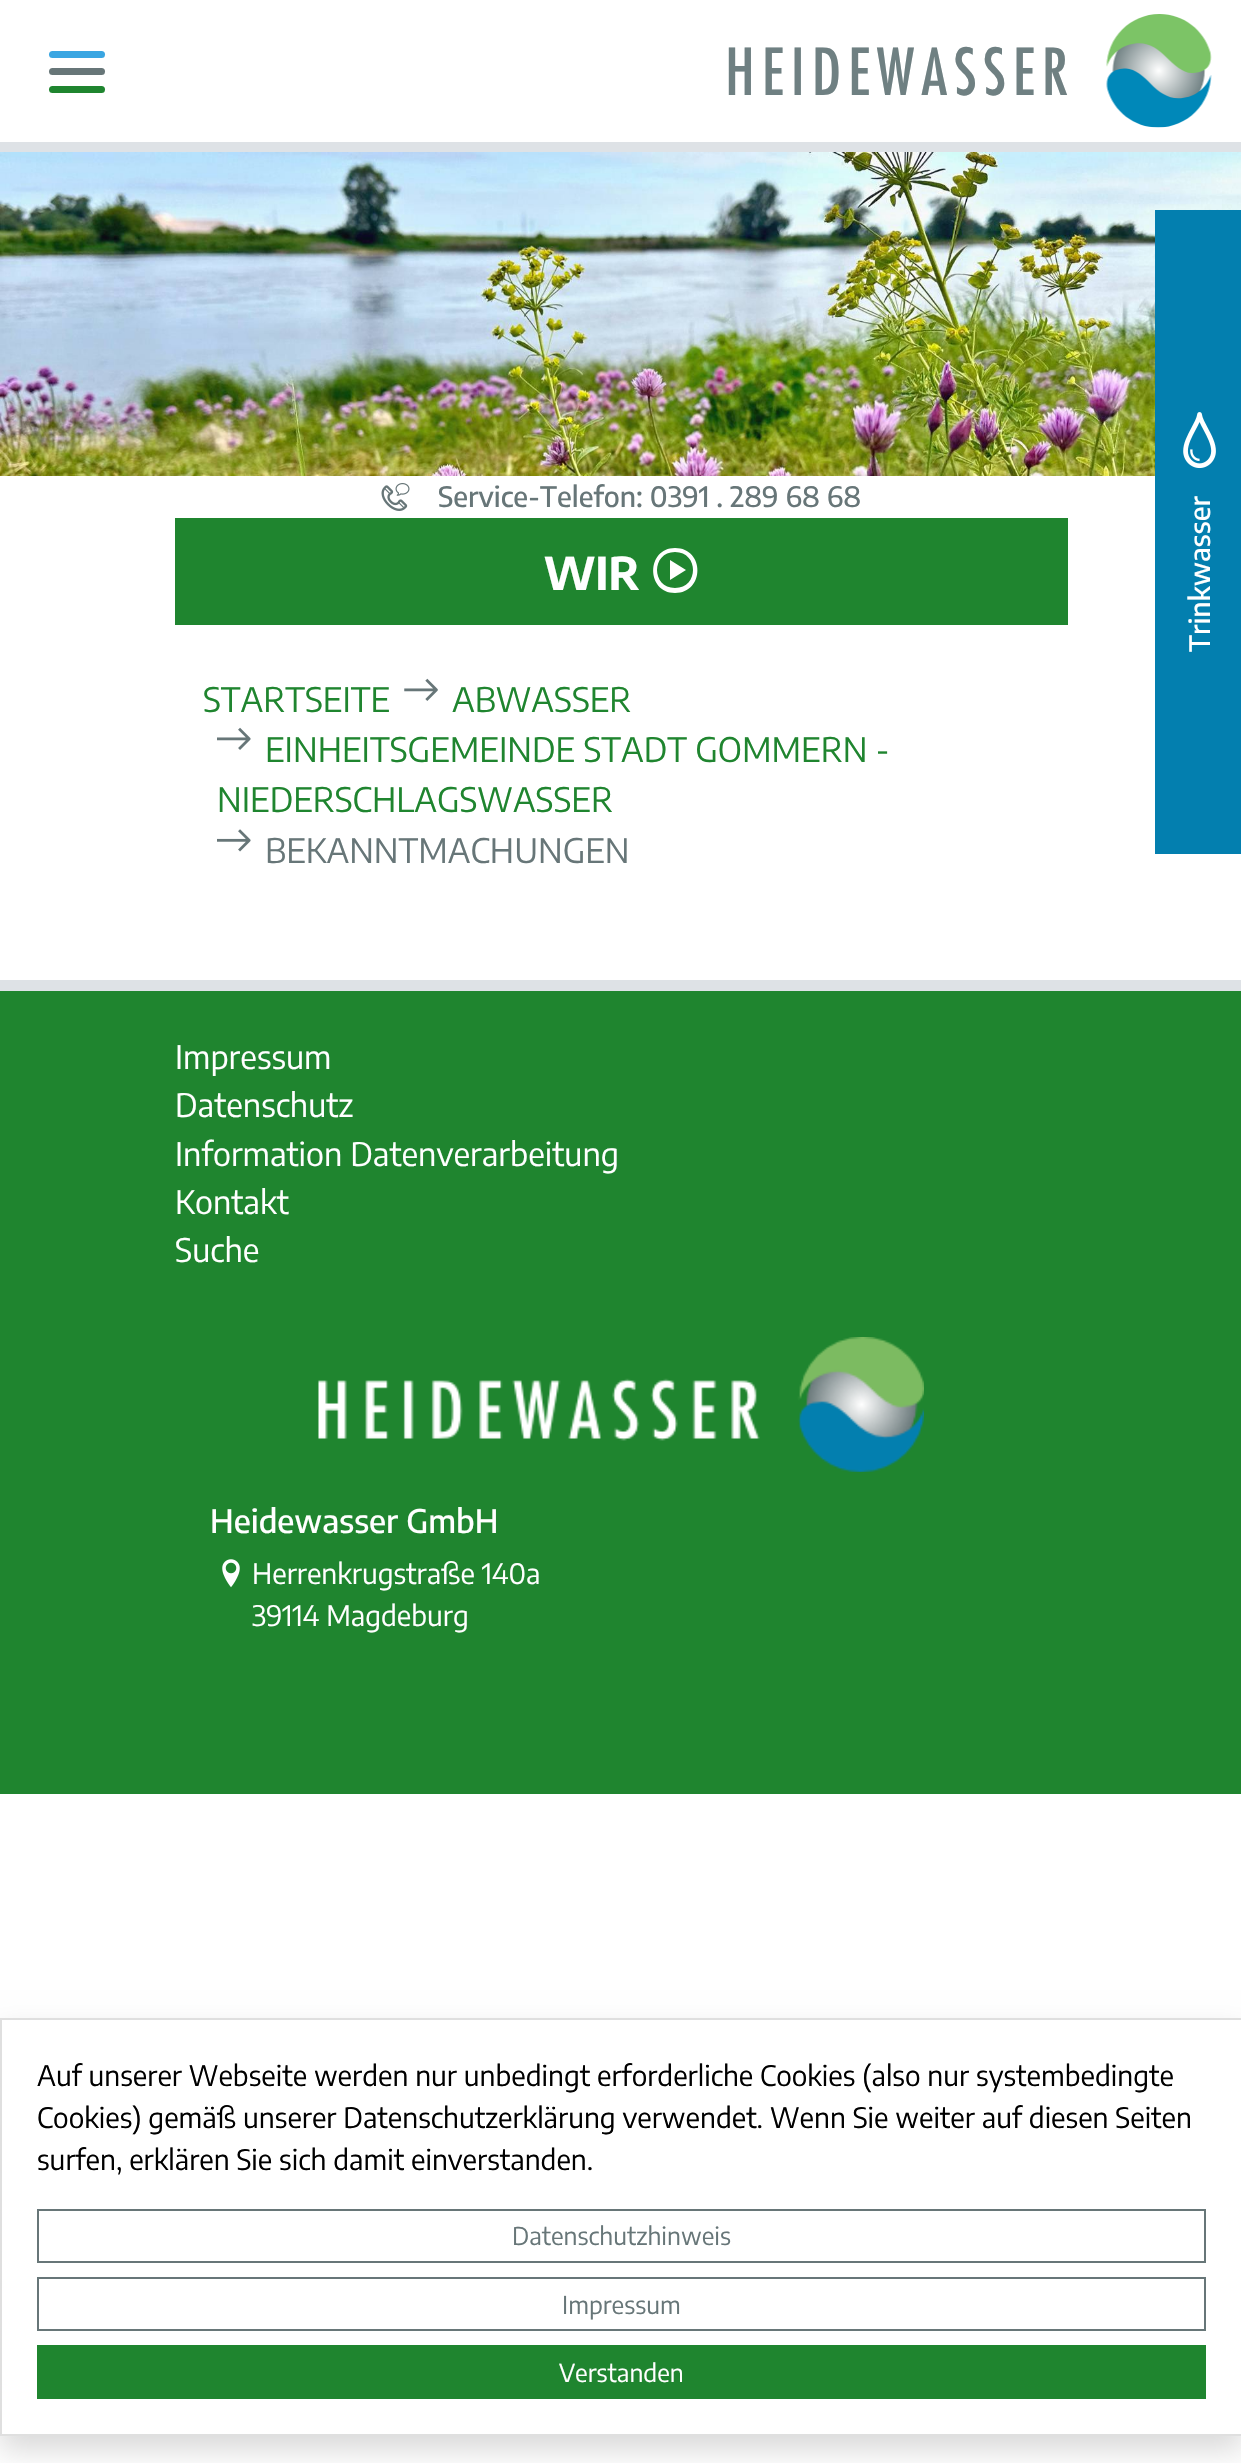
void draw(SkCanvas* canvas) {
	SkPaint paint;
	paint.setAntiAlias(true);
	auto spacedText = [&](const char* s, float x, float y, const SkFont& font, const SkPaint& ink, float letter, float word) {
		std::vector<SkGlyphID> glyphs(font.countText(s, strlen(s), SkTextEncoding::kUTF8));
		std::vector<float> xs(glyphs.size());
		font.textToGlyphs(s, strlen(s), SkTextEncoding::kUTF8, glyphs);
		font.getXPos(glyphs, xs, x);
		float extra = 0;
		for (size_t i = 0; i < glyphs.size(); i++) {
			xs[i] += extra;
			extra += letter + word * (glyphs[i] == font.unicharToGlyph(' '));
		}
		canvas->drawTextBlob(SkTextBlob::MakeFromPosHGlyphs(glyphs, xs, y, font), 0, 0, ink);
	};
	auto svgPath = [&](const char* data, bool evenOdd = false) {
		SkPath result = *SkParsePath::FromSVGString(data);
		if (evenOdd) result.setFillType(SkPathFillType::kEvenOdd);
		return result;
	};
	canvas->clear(0xffffffff);
	canvas->drawImageRect(SkImages::DeferredFromEncodedData(SkData::MakeFromFileName("img1.png")), SkRect::MakeXYWH(381, 483, 29, 28), SkSamplingOptions());
	SkFont f1(fontMgr->matchFamilyStyle("Encode Sans", SkFontStyle(500, SkFontStyle::kNormal_Width, SkFontStyle::kUpright_Slant)), 28);
	f1.setSubpixel(true);
	paint.setColor(0xff677678);
	canvas->drawString("Service-Telefon: 0391 . 289 68 68", 438, 507, f1, paint);
	paint.setColor(0xff1f852f);
	canvas->drawRect(SkRect::MakeXYWH(175, 518, 893, 107), paint);
	SkFont f2(fontMgr->matchFamilyStyle("Encode Sans", SkFontStyle::Bold()), 45);
	f2.setSubpixel(true);
	paint.setColor(0xffffffff);
	canvas->drawString("WIR", 544, 590, f2, paint);
	canvas->drawPath(svgPath("M675 548C646 548 646 593 675 593C705 593 705 548 675 548ZM675 588C651 588 651 552 675 552C699 552 699 588 675 588ZM670 560L686 570L670 580Z"), paint);
	paint.setColor(0xffdee2e6);
	canvas->drawRect(SkRect::MakeXYWH(0, 142, 1241, 10), paint);
	paint.setColor(0xff3aa6e2);
	canvas->drawRoundRect(SkRect::MakeXYWH(49, 51, 56, 7), 3.5, 3.5, paint);
	paint.setColor(0xff677678);
	canvas->drawRoundRect(SkRect::MakeXYWH(49, 68, 56, 7), 3.5, 3.5, paint);
	paint.setColor(0xff1f852f);
	canvas->drawRoundRect(SkRect::MakeXYWH(49, 86, 56, 7), 3.5, 3.5, paint);
	SkFont f3(fontMgr->matchFamilyStyle("Futura", SkFontStyle::Normal()), 63);
	f3.setSubpixel(true);
	paint.setColor(0xff6f8082);
	spacedText("HEIDEWASSER", 725, 95, f3, paint, 7, 0);
	canvas->drawImageRect(SkImages::DeferredFromEncodedData(SkData::MakeFromFileName("img2.png")), SkRect::MakeXYWH(1106, 14, 106, 114), SkSamplingOptions());
	canvas->drawImageRect(SkImages::DeferredFromEncodedData(SkData::MakeFromFileName("img3.png")), SkRect::MakeXYWH(0, 152, 1241, 324), SkSamplingOptions());
	paint.setColor(0xff037faf);
	canvas->drawRect(SkRect::MakeXYWH(1155, 210, 86, 644), paint);
	canvas->drawImageRect(SkImages::DeferredFromEncodedData(SkData::MakeFromFileName("img4.png")), SkRect::MakeXYWH(1183, 412, 33, 57), SkSamplingOptions());
	paint.setColor(0xffffffff);
	canvas->save();
	canvas->rotate(-90, 1210, 652);
	canvas->drawString("Trinkwasser", 1210, 652, f1, paint);
	canvas->restore();
	SkFont f4(fontMgr->matchFamilyStyle("Encode Sans", SkFontStyle::Normal()), 33.6);
	f4.setSubpixel(true);
	paint.setColor(0xff1f852f);
	canvas->drawString("STARTSEITE", 203, 712, f4, paint);
	canvas->drawImageRect(SkImages::DeferredFromEncodedData(SkData::MakeFromFileName("img5.png")), SkRect::MakeXYWH(404, 678, 34, 23), SkSamplingOptions());
	canvas->drawString("ABWASSER", 452, 712, f4, paint);
	canvas->drawImageRect(SkImages::DeferredFromEncodedData(SkData::MakeFromFileName("img6.png")), SkRect::MakeXYWH(217, 727, 34, 23), SkSamplingOptions());
	canvas->drawString("EINHEITSGEMEINDE STADT GOMMERN -", 265, 762, f4, paint);
	canvas->drawString("NIEDERSCHLAGSWASSER", 217, 812, f4, paint);
	canvas->drawImageRect(SkImages::DeferredFromEncodedData(SkData::MakeFromFileName("img7.png")), SkRect::MakeXYWH(217, 829, 34, 23), SkSamplingOptions());
	paint.setColor(0xff677678);
	canvas->drawString("BEKANNTMACHUNGEN", 265, 863, f4, paint);
	paint.setColor(0xff1f852f);
	canvas->drawRect(SkRect::MakeXYWH(0, 991, 1241, 803), paint);
	paint.setColor(0xffdee2e6);
	canvas->drawRect(SkRect::MakeXYWH(0, 980, 1241, 11), paint);
	SkFont f5(fontMgr->matchFamilyStyle("Encode Sans", SkFontStyle::Normal()), 32.25);
	f5.setSubpixel(true);
	paint.setColor(0xffffffff);
	canvas->drawString("Impressum", 175, 1069, f5, paint);
	canvas->drawString("Datenschutz", 175, 1117, f5, paint);
	canvas->drawString("Information Datenverarbeitung", 175, 1166, f5, paint);
	canvas->drawString("Kontakt", 175, 1214, f5, paint);
	canvas->drawString("Suche", 175, 1262, f5, paint);
	canvas->drawImageRect(SkImages::DeferredFromEncodedData(SkData::MakeFromFileName("img8.png")), SkRect::MakeXYWH(318, 1337, 606, 135), SkSamplingOptions());
	SkFont f6(fontMgr->matchFamilyStyle("Encode Sans", SkFontStyle(500, SkFontStyle::kNormal_Width, SkFontStyle::kUpright_Slant)), 32.25);
	f6.setSubpixel(true);
	canvas->drawString("Heidewasser GmbH", 210, 1533, f6, paint);
	canvas->drawImageRect(SkImages::DeferredFromEncodedData(SkData::MakeFromFileName("img9.png")), SkRect::MakeXYWH(222, 1559, 18, 29), SkSamplingOptions());
	SkFont f7(fontMgr->matchFamilyStyle("Encode Sans", SkFontStyle::Normal()), 28);
	f7.setSubpixel(true);
	canvas->drawString("Herrenkrugstraße 140a", 252, 1584, f7, paint);
	canvas->drawString("39114 Magdeburg", 252, 1626, f7, paint);
	canvas->save();
	canvas->clipPath(svgPath("M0 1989H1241V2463H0ZM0 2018H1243V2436H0Z", true), true);
	paint.setColor(0x26000000);
	paint.setMaskFilter(SkMaskFilter::MakeBlur(kNormal_SkBlurStyle, 14));
	canvas->drawRect(SkRect::MakeXYWH(0, 2032, 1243, 418), paint);
	paint.setMaskFilter(nullptr);
	canvas->restore();
	paint.setStroke(true);
	paint.setStrokeWidth(2);
	paint.setColor(0xffdfdfdf);
	canvas->drawRect(SkRect::MakeXYWH(1, 2019, 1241, 416), paint);
	paint.setStroke(false);
	paint.setColor(0xff000000);
	canvas->drawString("Auf unserer Webseite werden nur unbedingt erforderliche Cookies (also nur systembedingte", 37, 2086, f7, paint);
	canvas->drawString("Cookies) gemäß unserer Datenschutzerklärung verwendet. Wenn Sie weiter auf diesen Seiten", 37, 2128, f7, paint);
	canvas->drawString("surfen, erklären Sie sich damit einverstanden.", 37, 2170, f7, paint);
	paint.setStroke(true);
	paint.setColor(0xff677678);
	canvas->drawRect(SkRect::MakeXYWH(38, 2210, 1167, 52), paint);
	SkFont f8(fontMgr->matchFamilyStyle("Encode Sans", SkFontStyle::Normal()), 24.5);
	f8.setSubpixel(true);
	paint.setStroke(false);
	canvas->drawString("Datenschutzhinweis", 512, 2245, f8, paint);
	paint.setStroke(true);
	canvas->drawRect(SkRect::MakeXYWH(38, 2278, 1167, 52), paint);
	paint.setStroke(false);
	canvas->drawString("Impressum", 562, 2314, f8, paint);
	paint.setColor(0xff1f852f);
	canvas->drawRect(SkRect::MakeXYWH(37, 2345, 1169, 54), paint);
	paint.setColor(0xffffffff);
	canvas->drawString("Verstanden", 559, 2382, f8, paint);
}
